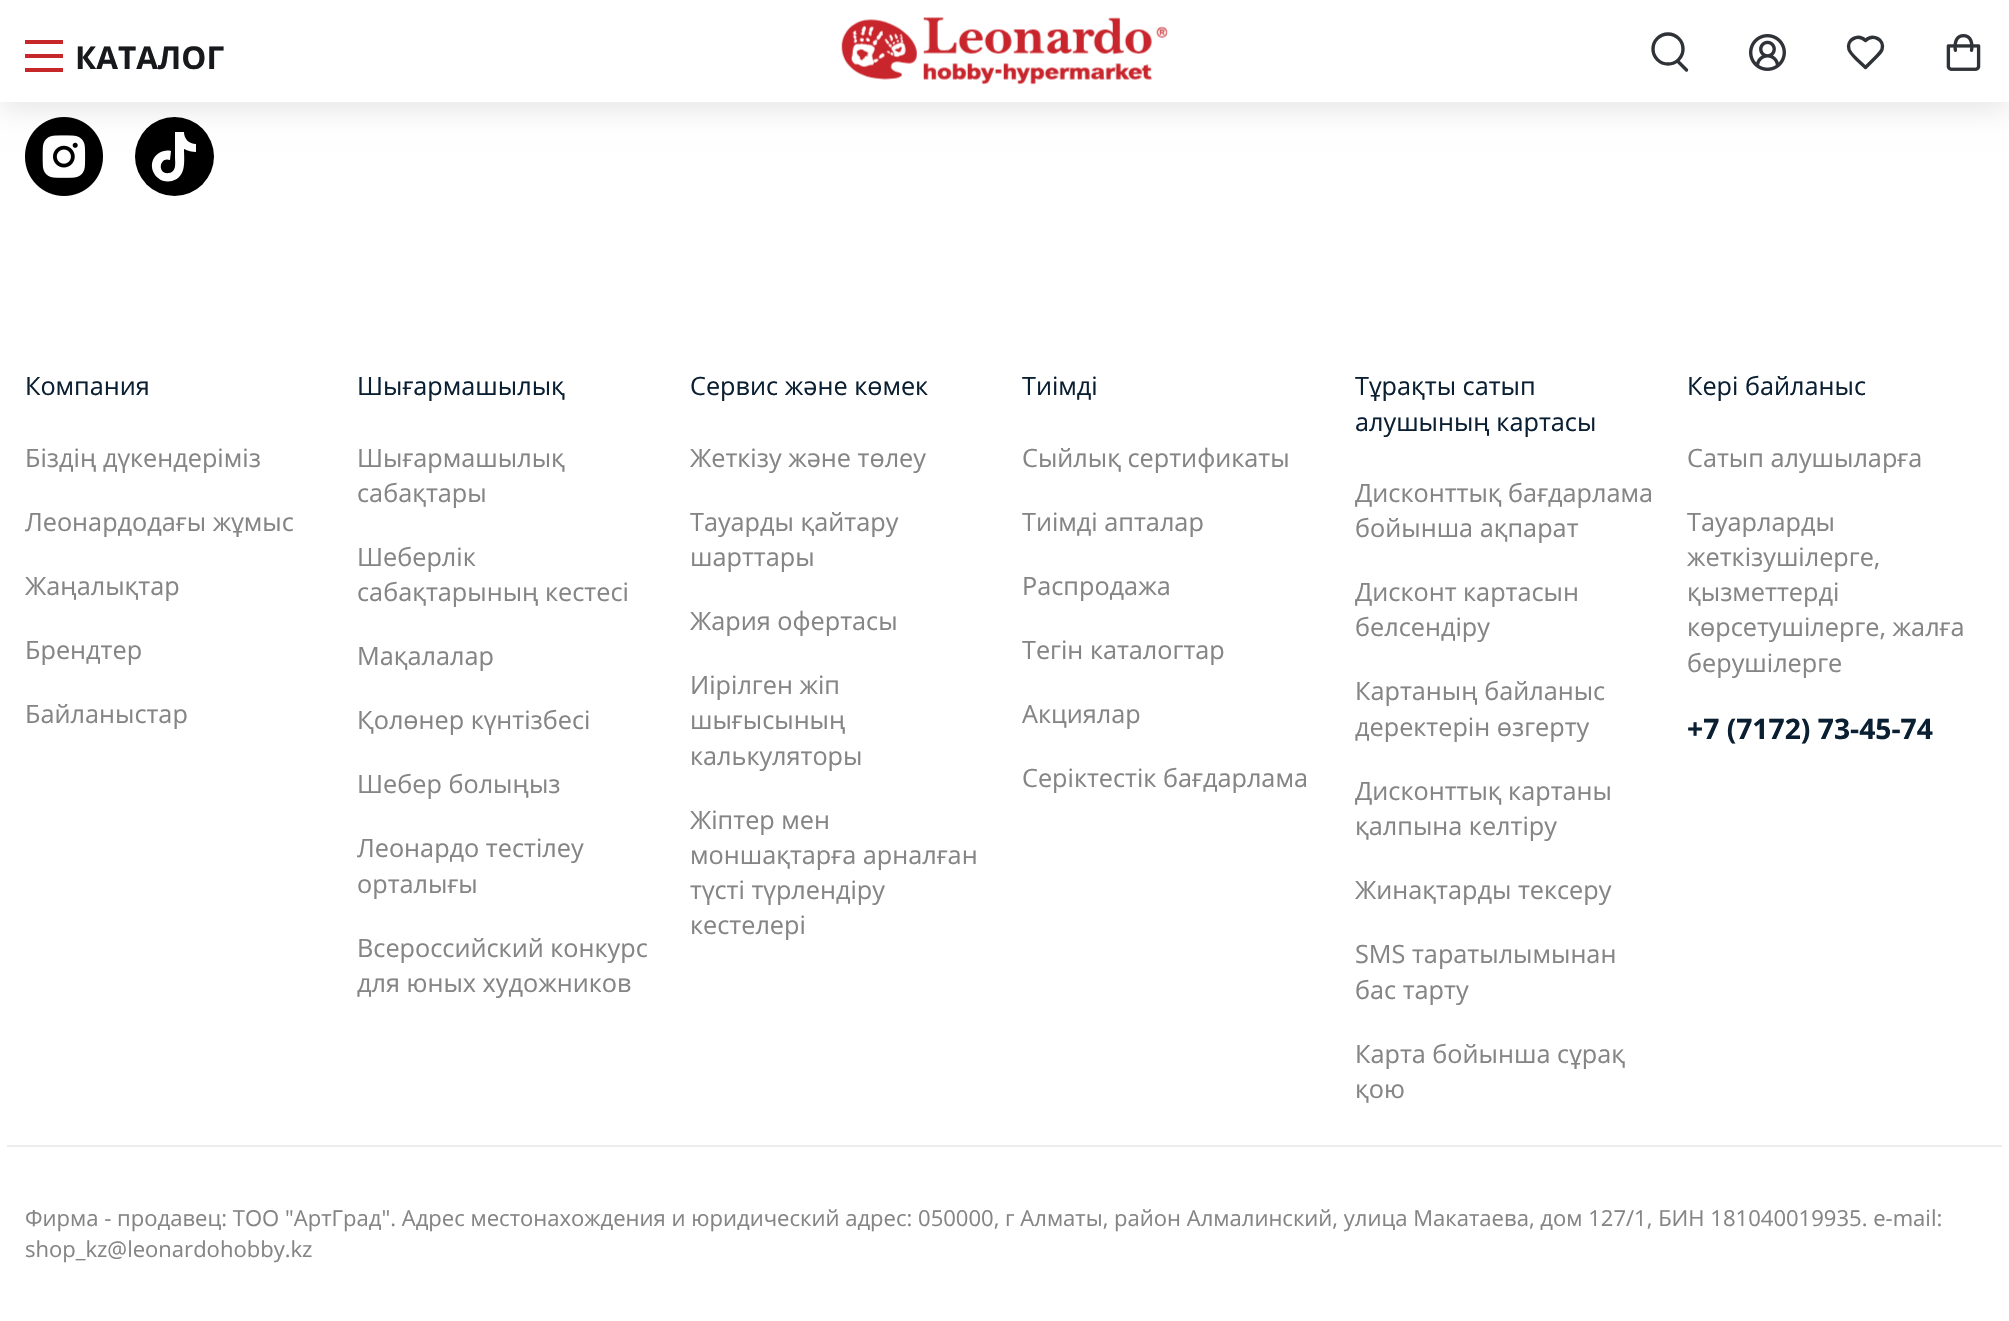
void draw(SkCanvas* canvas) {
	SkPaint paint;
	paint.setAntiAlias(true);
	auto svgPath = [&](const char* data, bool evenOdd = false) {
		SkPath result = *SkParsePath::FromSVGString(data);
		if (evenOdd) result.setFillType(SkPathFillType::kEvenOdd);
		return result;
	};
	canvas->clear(0xffffffff);
	canvas->drawImageRect(SkImages::DeferredFromEncodedData(SkData::MakeFromFileName("img4.png")), SkRect::MakeXYWH(25, 117, 78, 79), SkSamplingOptions());
	paint.setColor(0xff000000);
	canvas->drawCircle(174.5, 156.5, 39.5, paint);
	paint.setColor(0xffffffff);
	canvas->drawPath(svgPath("M175 132H184C184 139 189 144 196 144V152C192 152 188 151 184 149C184 160 187 177 172 181C155 185 144 163 159 153C162 151 167 150 171 151L170 160C159 156 157 175 169 173C177 172 175 162 175 157Z"), paint);
	paint.setColor(0x1a000000);
	paint.setMaskFilter(SkMaskFilter::MakeBlur(kNormal_SkBlurStyle, 14));
	canvas->drawRect(SkRect::MakeXYWH(0, 7, 2009, 102), paint);
	paint.setMaskFilter(nullptr);
	paint.setColor(0xffffffff);
	canvas->drawRect(SkRect::MakeXYWH(0, 0, 2009, 102), paint);
	paint.setColor(0xffc62829);
	canvas->drawRect(SkRect::MakeXYWH(25, 40, 38, 4), paint);
	canvas->drawRect(SkRect::MakeXYWH(25, 54, 38, 4), paint);
	canvas->drawRect(SkRect::MakeXYWH(25, 68, 38, 4), paint);
	SkFont f1(fontMgr->matchFamilyStyle("Open Sans", SkFontStyle::Bold()), 31.5);
	f1.setSubpixel(true);
	paint.setColor(0xff17191c);
	canvas->drawString("КАТАЛОГ", 75, 69, f1, paint);
	canvas->drawImageRect(SkImages::DeferredFromEncodedData(SkData::MakeFromFileName("img1.png")), SkRect::MakeXYWH(841, 17, 327, 68), SkSamplingOptions());
	paint.setStroke(true);
	paint.setStrokeWidth(3.4);
	paint.setColor(0xff2f3237);
	canvas->drawCircle(1668, 49, 15, paint);
	paint.setStrokeCap(SkPaint::kRound_Cap);
	canvas->drawPath(svgPath("M1678 61.5L1686.5 70"), paint);
	canvas->drawImageRect(SkImages::DeferredFromEncodedData(SkData::MakeFromFileName("img2.png")), SkRect::MakeXYWH(1749, 34, 37, 37), SkSamplingOptions());
	paint.setStrokeJoin(SkPaint::kRound_Join);
	canvas->drawPath(svgPath("M1877 56C1879 54 1881 52 1882 49.5C1885 39.5 1873 33.5 1865.5 40.5C1858 33.5 1846 39.5 1849 49.5C1850.5 53.5 1854.5 57 1857.5 60L1865.5 67.5Z"), paint);
	canvas->drawImageRect(SkImages::DeferredFromEncodedData(SkData::MakeFromFileName("img3.png")), SkRect::MakeXYWH(1946, 34, 35, 37), SkSamplingOptions());
	SkFont f2(fontMgr->matchFamilyStyle("Open Sans", SkFontStyle::Normal()), 25.25);
	f2.setSubpixel(true);
	paint.setStroke(false);
	paint.setColor(0xff0b1f33);
	canvas->drawString("Компания", 25, 395, f2, paint);
	paint.setColor(0xff858585);
	canvas->drawString("Біздің дүкендеріміз", 25, 467, f2, paint);
	canvas->drawString("Леонардодағы жұмыс", 25, 531, f2, paint);
	canvas->drawString("Жаңалықтар", 25, 595, f2, paint);
	canvas->drawString("Брендтер", 25, 659, f2, paint);
	canvas->drawString("Байланыстар", 25, 723, f2, paint);
	paint.setColor(0xff0b1f33);
	canvas->drawString("Шығармашылық", 357, 395, f2, paint);
	paint.setColor(0xff858585);
	canvas->drawString("Шығармашылық", 357, 467, f2, paint);
	canvas->drawString("сабақтары", 357, 502, f2, paint);
	canvas->drawString("Шеберлік", 357, 566, f2, paint);
	canvas->drawString("сабақтарының кестесі", 357, 601, f2, paint);
	canvas->drawString("Мақалалар", 357, 665, f2, paint);
	canvas->drawString("Қолөнер күнтізбесі", 357, 729, f2, paint);
	canvas->drawString("Шебер болыңыз", 357, 793, f2, paint);
	canvas->drawString("Леонардо тестілеу", 357, 857, f2, paint);
	canvas->drawString("орталығы", 357, 893, f2, paint);
	canvas->drawString("Всероссийский конкурс", 357, 957, f2, paint);
	canvas->drawString("для юных художников", 357, 992, f2, paint);
	paint.setColor(0xff0b1f33);
	canvas->drawString("Сервис және көмек", 690, 395, f2, paint);
	paint.setColor(0xff858585);
	canvas->drawString("Жеткізу және төлеу", 690, 467, f2, paint);
	canvas->drawString("Тауарды қайтару", 690, 531, f2, paint);
	canvas->drawString("шарттары", 690, 566, f2, paint);
	canvas->drawString("Жария офертасы", 690, 630, f2, paint);
	canvas->drawString("Иірілген жіп", 690, 694, f2, paint);
	canvas->drawString("шығысының", 690, 729, f2, paint);
	canvas->drawString("калькуляторы", 690, 765, f2, paint);
	canvas->drawString("Жіптер мен", 690, 829, f2, paint);
	canvas->drawString("моншақтарға арналған", 690, 864, f2, paint);
	canvas->drawString("түсті түрлендіру", 690, 899, f2, paint);
	canvas->drawString("кестелері", 690, 934, f2, paint);
	paint.setColor(0xff0b1f33);
	canvas->drawString("Тиімді", 1022, 395, f2, paint);
	paint.setColor(0xff858585);
	canvas->drawString("Сыйлық сертификаты", 1022, 467, f2, paint);
	canvas->drawString("Тиімді апталар", 1022, 531, f2, paint);
	canvas->drawString("Распродажа", 1022, 595, f2, paint);
	canvas->drawString("Тегін каталогтар", 1022, 659, f2, paint);
	canvas->drawString("Акциялар", 1022, 723, f2, paint);
	canvas->drawString("Серіктестік бағдарлама", 1022, 787, f2, paint);
	paint.setColor(0xff0b1f33);
	canvas->drawString("Тұрақты сатып", 1355, 395, f2, paint);
	canvas->drawString("алушының картасы", 1355, 431, f2, paint);
	paint.setColor(0xff858585);
	canvas->drawString("Дисконттық бағдарлама", 1355, 502, f2, paint);
	canvas->drawString("бойынша ақпарат", 1355, 537, f2, paint);
	canvas->drawString("Дисконт картасын", 1355, 601, f2, paint);
	canvas->drawString("белсендіру", 1355, 636, f2, paint);
	canvas->drawString("Картаның байланыс", 1355, 700, f2, paint);
	canvas->drawString("деректерін өзгерту", 1355, 736, f2, paint);
	canvas->drawString("Дисконттық картаны", 1355, 800, f2, paint);
	canvas->drawString("қалпына келтіру", 1355, 835, f2, paint);
	canvas->drawString("Жинақтарды тексеру", 1355, 899, f2, paint);
	canvas->drawString("SMS таратылымынан", 1355, 963, f2, paint);
	canvas->drawString("бас тарту", 1355, 999, f2, paint);
	canvas->drawString("Карта бойынша сұрақ", 1355, 1063, f2, paint);
	canvas->drawString("қою", 1355, 1098, f2, paint);
	paint.setColor(0xff0b1f33);
	canvas->drawString("Кері байланыс", 1687, 395, f2, paint);
	paint.setColor(0xff858585);
	canvas->drawString("Сатып алушыларға", 1687, 467, f2, paint);
	canvas->drawString("Тауарларды", 1687, 531, f2, paint);
	canvas->drawString("жеткізушілерге,", 1687, 566, f2, paint);
	canvas->drawString("қызметтерді", 1687, 601, f2, paint);
	canvas->drawString("көрсетушілерге, жалға", 1687, 636, f2, paint);
	canvas->drawString("берушілерге", 1687, 672, f2, paint);
	SkFont f3(fontMgr->matchFamilyStyle("Open Sans", SkFontStyle::Bold()), 28.25);
	f3.setSubpixel(true);
	paint.setColor(0xff0b1f33);
	canvas->drawString("+7 (7172) 73-45-74", 1687, 739, f3, paint);
	paint.setColor(0xffededed);
	canvas->drawRect(SkRect::MakeXYWH(7, 1145, 1995, 2), paint);
	SkFont f4(fontMgr->matchFamilyStyle("Open Sans", SkFontStyle::Normal()), 22.05);
	f4.setSubpixel(true);
	paint.setColor(0xff858585);
	canvas->drawString("Фирма - продавец: ТОО \"АртГрад\". Адрес местонахождения и юридический адрес: 050000, г Алматы, район Алмалинский, улица Макатаева, дом 127/1, БИН 181040019935. e-mail:", 25, 1226, f4, paint);
	canvas->drawString("shop_kz@leonardohobby.kz", 25, 1257, f4, paint);
}
